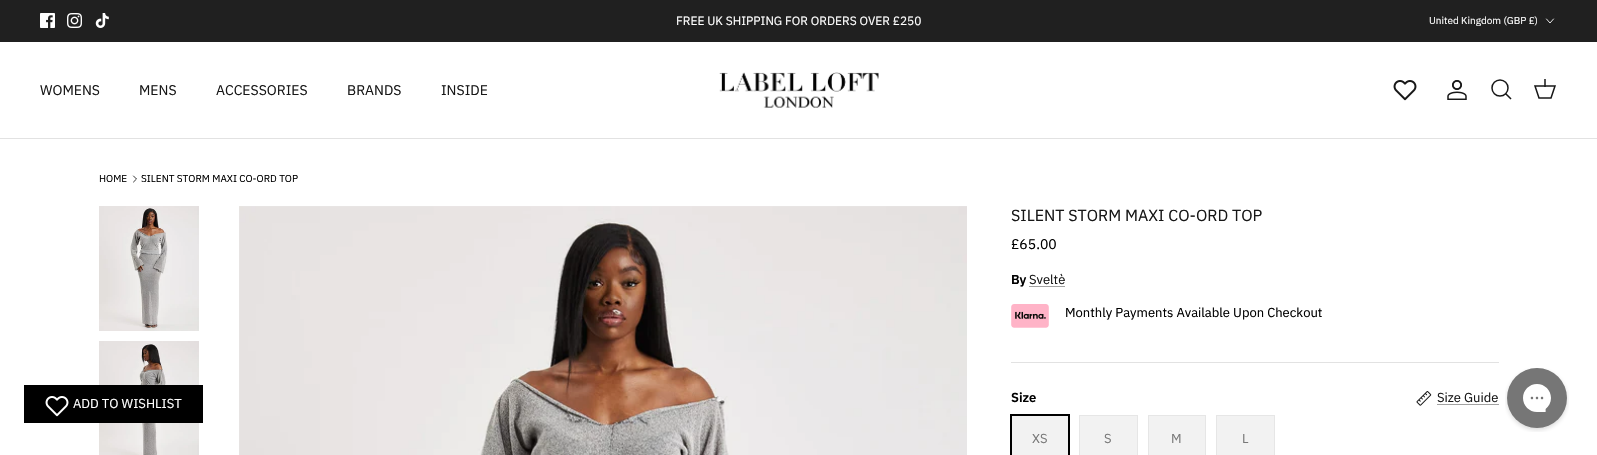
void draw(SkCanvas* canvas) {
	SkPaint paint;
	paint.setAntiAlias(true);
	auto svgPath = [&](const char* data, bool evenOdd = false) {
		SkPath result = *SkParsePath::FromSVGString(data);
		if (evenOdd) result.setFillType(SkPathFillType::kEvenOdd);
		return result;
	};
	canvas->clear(0xffffffff);
	paint.setColor(0xff202020);
	canvas->drawRect(SkRect::MakeXYWH(0, 0, 1597, 42), paint);
	canvas->drawImageRect(SkImages::DeferredFromEncodedData(SkData::MakeFromFileName("img1.png")), SkRect::MakeXYWH(40, 13, 15, 15), SkSamplingOptions());
	canvas->drawImageRect(SkImages::DeferredFromEncodedData(SkData::MakeFromFileName("img2.png")), SkRect::MakeXYWH(67, 13, 15, 15), SkSamplingOptions());
	canvas->drawImageRect(SkImages::DeferredFromEncodedData(SkData::MakeFromFileName("img3.png")), SkRect::MakeXYWH(95, 13, 14, 15), SkSamplingOptions());
	SkFont f1(fontMgr->matchFamilyStyle("IBM Plex Sans", SkFontStyle::Normal()), 12);
	f1.setSubpixel(true);
	paint.setColor(0xffffffff);
	canvas->drawString("FREE UK SHIPPING FOR ORDERS OVER £250", 676, 25, f1, paint);
	SkFont f2(fontMgr->matchFamilyStyle("IBM Plex Sans", SkFontStyle::Normal()), 10);
	f2.setSubpixel(true);
	canvas->drawString("United Kingdom (GBP £)", 1429, 24, f2, paint);
	paint.setStroke(true);
	paint.setStrokeWidth(0.9);
	paint.setStrokeCap(SkPaint::kRound_Cap);
	paint.setStrokeJoin(SkPaint::kRound_Join);
	canvas->drawPath(svgPath("M1546.5 19L1550 23L1553.5 19"), paint);
	paint.setStroke(false);
	paint.setColor(0xffe2e2e2);
	canvas->drawRect(SkRect::MakeXYWH(0, 138, 1597, 1), paint);
	SkFont f3(fontMgr->matchFamilyStyle("IBM Plex Sans", SkFontStyle::Normal()), 14);
	f3.setSubpixel(true);
	paint.setColor(0xff171717);
	canvas->drawString("WOMENS", 40, 95, f3, paint);
	canvas->drawString("MENS", 139, 95, f3, paint);
	canvas->drawString("ACCESSORIES", 216, 95, f3, paint);
	canvas->drawString("BRANDS", 347, 95, f3, paint);
	canvas->drawString("INSIDE", 441, 95, f3, paint);
	canvas->drawImageRect(SkImages::DeferredFromEncodedData(SkData::MakeFromFileName("img4.png")), SkRect::MakeXYWH(719, 72, 160, 36), SkSamplingOptions());
	canvas->drawImageRect(SkImages::DeferredFromEncodedData(SkData::MakeFromFileName("img5.png")), SkRect::MakeXYWH(1393, 80, 24, 21), SkSamplingOptions());
	canvas->drawImageRect(SkImages::DeferredFromEncodedData(SkData::MakeFromFileName("img6.png")), SkRect::MakeXYWH(1447, 80, 20, 20), SkSamplingOptions());
	paint.setStroke(true);
	paint.setStrokeWidth(1.5);
	paint.setStrokeCap(SkPaint::kButt_Cap);
	paint.setStrokeJoin(SkPaint::kMiter_Join);
	canvas->drawCircle(1500, 88, 8, paint);
	paint.setStrokeCap(SkPaint::kSquare_Cap);
	canvas->drawPath(svgPath("M1506 94L1510.5 98.5"), paint);
	paint.setStrokeCap(SkPaint::kButt_Cap);
	canvas->drawPath(svgPath("M1535 86H1555L1551 98H1539Z"), paint);
	paint.setStroke(false);
	paint.setColor(0xbf171717);
	canvas->drawRect(SkRect::MakeXYWH(1544, 79, 2, 8), paint);
	paint.setColor(0xff000000);
	canvas->drawString("HOME", 99, 182, f2, paint);
	paint.setStroke(true);
	paint.setStrokeWidth(0.8);
	paint.setStrokeCap(SkPaint::kRound_Cap);
	paint.setStrokeJoin(SkPaint::kRound_Join);
	canvas->drawPath(svgPath("M133.5 182L136.5 179L133.5 176"), paint);
	paint.setStroke(false);
	canvas->drawString("SILENT STORM MAXI CO-ORD TOP", 141, 182, f2, paint);
	canvas->drawImageRect(SkImages::DeferredFromEncodedData(SkData::MakeFromFileName("img7.png")), SkRect::MakeXYWH(99, 206, 100, 125), SkSamplingOptions());
	canvas->drawImageRect(SkImages::DeferredFromEncodedData(SkData::MakeFromFileName("img8.png")), SkRect::MakeXYWH(99, 341, 100, 114), SkSamplingOptions());
	canvas->drawImageRect(SkImages::DeferredFromEncodedData(SkData::MakeFromFileName("img9.png")), SkRect::MakeXYWH(239, 206, 728, 249), SkSamplingOptions());
	SkFont f4(fontMgr->matchFamilyStyle("IBM Plex Sans", SkFontStyle::Normal()), 16);
	f4.setSubpixel(true);
	paint.setColor(0xff171717);
	canvas->drawString("SILENT STORM MAXI CO-ORD TOP", 1011, 221, f4, paint);
	paint.setColor(0xff000000);
	canvas->drawString("£65.00", 1011, 249, f3, paint);
	SkFont f5(fontMgr->matchFamilyStyle("IBM Plex Sans", SkFontStyle(600, SkFontStyle::kNormal_Width, SkFontStyle::kUpright_Slant)), 13);
	f5.setSubpixel(true);
	canvas->drawString("By", 1011, 284, f5, paint);
	SkFont f6(fontMgr->matchFamilyStyle("IBM Plex Sans", SkFontStyle::Normal()), 13);
	f6.setSubpixel(true);
	paint.setColor(0xff171717);
	canvas->drawString("Sveltè", 1029, 284, f6, paint);
	paint.setColor(0xffa2a2a2);
	canvas->drawRect(SkRect::MakeXYWH(1029, 286, 36, 1), paint);
	canvas->drawImageRect(SkImages::DeferredFromEncodedData(SkData::MakeFromFileName("img10.png")), SkRect::MakeXYWH(1011, 304, 38, 24), SkSamplingOptions());
	paint.setColor(0xff000000);
	canvas->drawString("Monthly Payments Available Upon Checkout", 1065, 317, f6, paint);
	paint.setColor(0xffe2e2e2);
	canvas->drawRect(SkRect::MakeXYWH(1011, 362, 488, 1), paint);
	paint.setColor(0xff000000);
	canvas->drawString("Size", 1011, 402, f5, paint);
	canvas->drawImageRect(SkImages::DeferredFromEncodedData(SkData::MakeFromFileName("img11.png")), SkRect::MakeXYWH(1416, 391, 16, 15), SkSamplingOptions());
	paint.setColor(0xff171717);
	canvas->drawString("Size Guide", 1437, 402, f6, paint);
	paint.setColor(0xffa2a2a2);
	canvas->drawRect(SkRect::MakeXYWH(1437, 404, 62, 1), paint);
	paint.setStroke(true);
	paint.setStrokeWidth(1);
	paint.setStrokeCap(SkPaint::kButt_Cap);
	paint.setStrokeJoin(SkPaint::kMiter_Join);
	paint.setColor(0xff000000);
	canvas->drawRect(SkRect::MakeXYWH(1010.5, 414.5, 59, 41), paint);
	paint.setStroke(false);
	paint.setColor(0xfff2f2f2);
	canvas->drawRect(SkRect::MakeXYWH(1011.5, 415.5, 57, 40), paint);
	paint.setStroke(true);
	paint.setColor(0xff000000);
	canvas->drawRect(SkRect::MakeXYWH(1011.5, 415.5, 57, 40), paint);
	paint.setStroke(false);
	paint.setColor(0xff797979);
	canvas->drawString("XS", 1032, 443, f6, paint);
	paint.setColor(0xfff2f2f2);
	canvas->drawRect(SkRect::MakeXYWH(1079.5, 415.5, 58, 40), paint);
	paint.setStroke(true);
	paint.setColor(0xffe6e6e6);
	canvas->drawRect(SkRect::MakeXYWH(1079.5, 415.5, 58, 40), paint);
	paint.setStroke(false);
	paint.setColor(0xff797979);
	canvas->drawString("S", 1104, 443, f6, paint);
	paint.setColor(0xfff2f2f2);
	canvas->drawRect(SkRect::MakeXYWH(1148.5, 415.5, 57, 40), paint);
	paint.setStroke(true);
	paint.setColor(0xffe6e6e6);
	canvas->drawRect(SkRect::MakeXYWH(1148.5, 415.5, 57, 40), paint);
	paint.setStroke(false);
	paint.setColor(0xff797979);
	canvas->drawString("M", 1171, 443, f6, paint);
	paint.setColor(0xfff2f2f2);
	canvas->drawRect(SkRect::MakeXYWH(1216.5, 415.5, 58, 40), paint);
	paint.setStroke(true);
	paint.setColor(0xffe6e6e6);
	canvas->drawRect(SkRect::MakeXYWH(1216.5, 415.5, 58, 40), paint);
	paint.setStroke(false);
	paint.setColor(0xff797979);
	canvas->drawString("L", 1242, 443, f6, paint);
	canvas->drawImageRect(SkImages::DeferredFromEncodedData(SkData::MakeFromFileName("img12.png")), SkRect::MakeXYWH(1505, 368, 64, 64), SkSamplingOptions());
	paint.setColor(0xff000000);
	canvas->drawRect(SkRect::MakeXYWH(24, 385, 179, 38), paint);
	canvas->drawImageRect(SkImages::DeferredFromEncodedData(SkData::MakeFromFileName("img13.png")), SkRect::MakeXYWH(45, 396, 24, 21), SkSamplingOptions());
	paint.setColor(0xffffffff);
	canvas->drawString("ADD TO WISHLIST", 73, 408, f6, paint);
}
